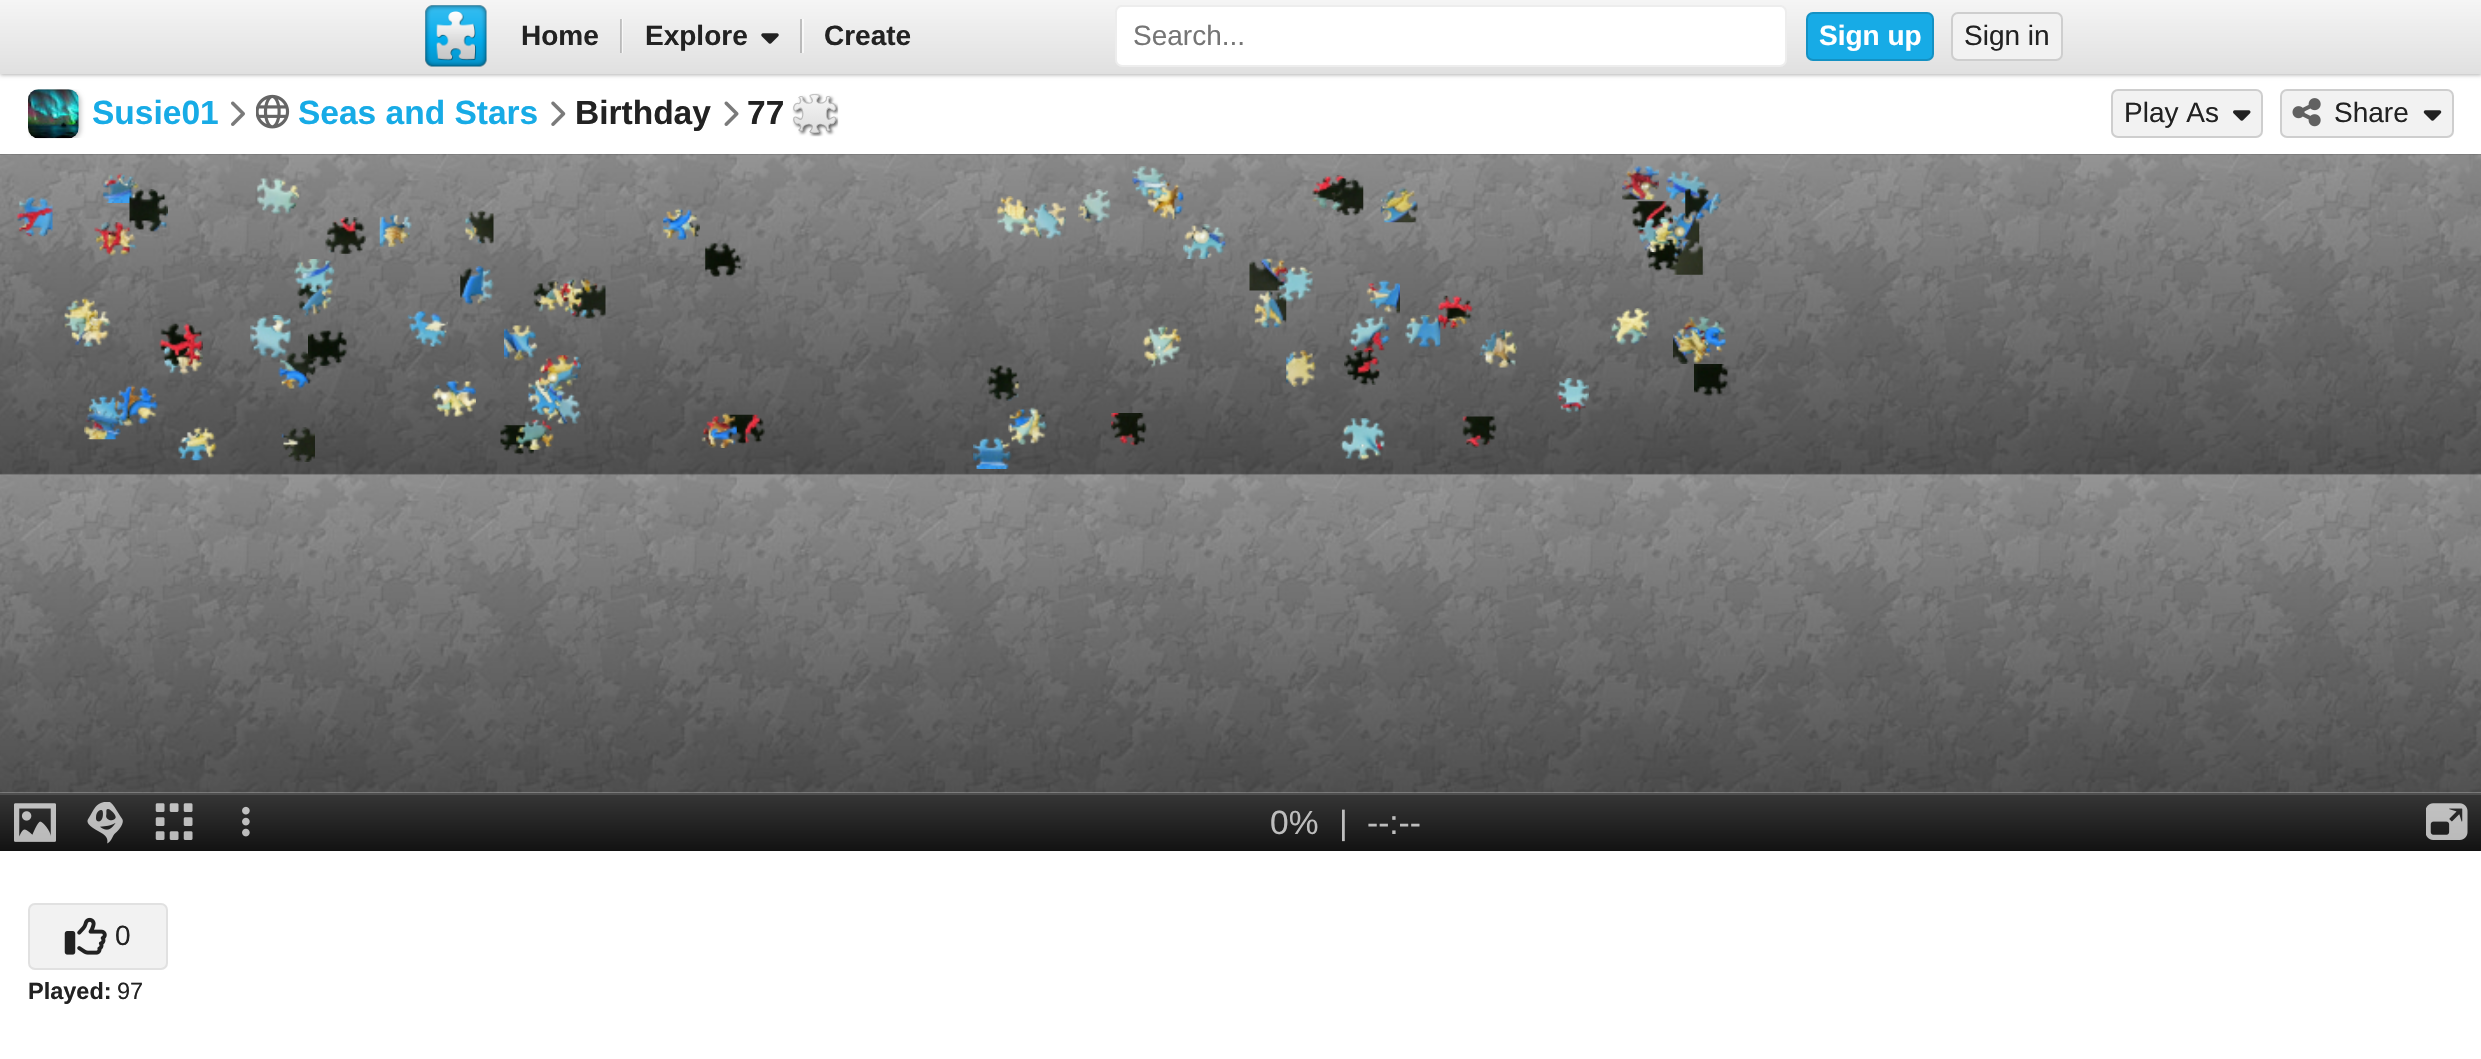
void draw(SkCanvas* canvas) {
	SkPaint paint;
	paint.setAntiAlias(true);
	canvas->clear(0xffffffff);
	paint.setColor(0x4d000000);
	paint.setMaskFilter(SkMaskFilter::MakeBlur(kNormal_SkBlurStyle, 2));
	canvas->drawRect(SkRect::MakeXYWH(0, 2, 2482, 73), paint);
	paint.setMaskFilter(nullptr);
	{
		const SkColor colors[] = {0xfff5f5f5, 0xffe0e0e0};
		const float stops[] = {0, 1};
		const SkPoint ends[] = {{1241, 0}, {1241, 74}};
		paint.setShader(SkGradientShader::MakeLinear(ends, colors, stops, 2, SkTileMode::kClamp));
		paint.setAlpha(255);
	}
	canvas->drawRect(SkRect::MakeXYWH(0, 0, 2481, 74), paint);
	{
		const SkColor colors[] = {0xffc4c4c4, 0xffb3b3b3};
		const float stops[] = {0, 1};
		const SkPoint ends[] = {{1241, 0}, {1241, 74}};
		paint.setShader(SkGradientShader::MakeLinear(ends, colors, stops, 2, SkTileMode::kClamp));
		paint.setAlpha(255);
	}
	canvas->drawRect(SkRect::MakeXYWH(800, 19, 2, 34), paint);
	{
		const SkColor colors[] = {0xfffbfbfb, 0xfff3f3f3};
		const float stops[] = {0, 1};
		const SkPoint ends[] = {{1241, 0}, {1241, 74}};
		paint.setShader(SkGradientShader::MakeLinear(ends, colors, stops, 2, SkTileMode::kClamp));
		paint.setAlpha(255);
	}
	canvas->drawRect(SkRect::MakeXYWH(802, 19, 2, 34), paint);
	{
		const SkColor colors[] = {0xffc4c4c4, 0xffb3b3b3};
		const float stops[] = {0, 1};
		const SkPoint ends[] = {{1241, 0}, {1241, 74}};
		paint.setShader(SkGradientShader::MakeLinear(ends, colors, stops, 2, SkTileMode::kClamp));
		paint.setAlpha(255);
	}
	canvas->drawRect(SkRect::MakeXYWH(620, 19, 1, 34), paint);
	{
		const SkColor colors[] = {0xfffbfbfb, 0xfff3f3f3};
		const float stops[] = {0, 1};
		const SkPoint ends[] = {{1241, 0}, {1241, 74}};
		paint.setShader(SkGradientShader::MakeLinear(ends, colors, stops, 2, SkTileMode::kClamp));
		paint.setAlpha(255);
	}
	canvas->drawRect(SkRect::MakeXYWH(622, 19, 1, 34), paint);
	{
		const SkColor colors[] = {0xffc9c9c9, 0xffc2c2c2};
		const float stops[] = {0, 1};
		const SkPoint ends[] = {{1241, 0}, {1241, 74}};
		paint.setShader(SkGradientShader::MakeLinear(ends, colors, stops, 2, SkTileMode::kClamp));
		paint.setAlpha(255);
	}
	canvas->drawRect(SkRect::MakeXYWH(621, 19, 1, 34), paint);
	canvas->drawImageRect(SkImages::DeferredFromEncodedData(SkData::MakeFromFileName("img1.png")), SkRect::MakeXYWH(425, 5, 62, 62), SkSamplingOptions());
	SkFont f1(fontMgr->matchFamilyStyle("Liberation Sans", SkFontStyle::Bold()), 28);
	f1.setSubpixel(true);
	paint.setShader(nullptr);
	paint.setColor(0xff222222);
	canvas->drawString("Home", 521, 45, f1, paint);
	canvas->drawString("Explore", 645, 45, f1, paint);
	canvas->drawImageRect(SkImages::DeferredFromEncodedData(SkData::MakeFromFileName("img2.png")), SkRect::MakeXYWH(761, 33, 18, 11), SkSamplingOptions());
	canvas->drawString("Create", 824, 45, f1, paint);
	paint.setColor(0xffffffff);
	canvas->drawRoundRect(SkRect::MakeXYWH(1115, 5, 672, 62), 7, 7, paint);
	paint.setStroke(true);
	paint.setStrokeWidth(2);
	paint.setColor(0x12000000);
	canvas->drawRoundRect(SkRect::MakeXYWH(1116, 6, 670, 60), 6, 6, paint);
	SkFont f2(fontMgr->matchFamilyStyle("Liberation Sans", SkFontStyle::Normal()), 28);
	f2.setSubpixel(true);
	paint.setStroke(false);
	paint.setColor(0xff757575);
	canvas->drawString("Search...", 1133, 45, f2, paint);
	paint.setColor(0xff17abe6);
	canvas->drawRoundRect(SkRect::MakeXYWH(1806, 12, 128, 49), 7, 7, paint);
	paint.setStroke(true);
	paint.setColor(0x26000000);
	canvas->drawRoundRect(SkRect::MakeXYWH(1807, 13, 126, 47), 6, 6, paint);
	paint.setStroke(false);
	paint.setColor(0xffffffff);
	canvas->drawString("Sign up", 1819, 45, f1, paint);
	paint.setColor(0xfff2f2f2);
	canvas->drawRoundRect(SkRect::MakeXYWH(1951, 12, 112, 49), 7, 7, paint);
	paint.setStroke(true);
	paint.setColor(0x26000000);
	canvas->drawRoundRect(SkRect::MakeXYWH(1952, 13, 110, 47), 6, 6, paint);
	paint.setStroke(false);
	paint.setColor(0xff222222);
	canvas->drawString("Sign in", 1964, 45, f2, paint);
	canvas->save();
	canvas->clipRect(SkRect::MakeXYWH(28, 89, 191, 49));
	paint.setColor(0x33000000);
	paint.setMaskFilter(SkMaskFilter::MakeBlur(kNormal_SkBlurStyle, 2));
	canvas->drawRoundRect(SkRect::MakeXYWH(30, 91, 51, 49), 11, 11, paint);
	paint.setMaskFilter(nullptr);
	canvas->restore();
	paint.setColor(0xfff0f0f0);
	canvas->drawRoundRect(SkRect::MakeXYWH(28, 89, 51, 49), 11, 11, paint);
	canvas->drawImageRect(SkImages::DeferredFromEncodedData(SkData::MakeFromFileName("img3.png")), SkRect::MakeXYWH(28, 89, 51, 50), SkSamplingOptions());
	paint.setStroke(true);
	paint.setColor(0x12000000);
	canvas->drawRoundRect(SkRect::MakeXYWH(29, 90, 49, 47), 10, 10, paint);
	SkFont f3(fontMgr->matchFamilyStyle("Liberation Sans", SkFontStyle::Bold()), 33.5);
	f3.setSubpixel(true);
	paint.setStroke(false);
	paint.setColor(0xff17abe6);
	canvas->drawString("Susie01", 92, 124, f3, paint);
	canvas->drawImageRect(SkImages::DeferredFromEncodedData(SkData::MakeFromFileName("img4.png")), SkRect::MakeXYWH(231, 101, 14, 25), SkSamplingOptions());
	canvas->drawImageRect(SkImages::DeferredFromEncodedData(SkData::MakeFromFileName("img5.png")), SkRect::MakeXYWH(256, 94, 34, 35), SkSamplingOptions());
	canvas->drawString("Seas and Stars", 298, 124, f3, paint);
	canvas->drawImageRect(SkImages::DeferredFromEncodedData(SkData::MakeFromFileName("img6.png")), SkRect::MakeXYWH(551, 101, 15, 25), SkSamplingOptions());
	paint.setColor(0xff222222);
	canvas->drawString("Birthday", 575, 124, f3, paint);
	canvas->drawImageRect(SkImages::DeferredFromEncodedData(SkData::MakeFromFileName("img7.png")), SkRect::MakeXYWH(724, 101, 15, 25), SkSamplingOptions());
	canvas->drawString("77", 747, 124, f3, paint);
	canvas->drawImageRect(SkImages::DeferredFromEncodedData(SkData::MakeFromFileName("img8.png")), SkRect::MakeXYWH(792, 93, 47, 44), SkSamplingOptions());
	paint.setColor(0xfff2f2f2);
	canvas->drawRoundRect(SkRect::MakeXYWH(2111, 89, 152, 49), 7, 7, paint);
	paint.setStroke(true);
	paint.setColor(0x26000000);
	canvas->drawRoundRect(SkRect::MakeXYWH(2112, 90, 150, 47), 6, 6, paint);
	paint.setStroke(false);
	paint.setColor(0xff222222);
	canvas->drawString("Play As", 2124, 122, f2, paint);
	canvas->drawImageRect(SkImages::DeferredFromEncodedData(SkData::MakeFromFileName("img9.png")), SkRect::MakeXYWH(2233, 110, 18, 11), SkSamplingOptions());
	paint.setColor(0xfff2f2f2);
	canvas->drawRoundRect(SkRect::MakeXYWH(2280, 89, 174, 49), 7, 7, paint);
	paint.setStroke(true);
	paint.setColor(0x26000000);
	canvas->drawRoundRect(SkRect::MakeXYWH(2281, 90, 172, 47), 6, 6, paint);
	canvas->drawImageRect(SkImages::DeferredFromEncodedData(SkData::MakeFromFileName("img10.png")), SkRect::MakeXYWH(2292, 98, 29, 29), SkSamplingOptions());
	paint.setStroke(false);
	paint.setColor(0xff222222);
	canvas->drawString("Share", 2334, 122, f2, paint);
	canvas->drawImageRect(SkImages::DeferredFromEncodedData(SkData::MakeFromFileName("img11.png")), SkRect::MakeXYWH(2423, 110, 19, 11), SkSamplingOptions());
	canvas->drawImageRect(SkImages::DeferredFromEncodedData(SkData::MakeFromFileName("img12.png")), SkRect::MakeXYWH(0, 154, 2481, 639), SkSamplingOptions());
	canvas->drawImageRect(SkImages::DeferredFromEncodedData(SkData::MakeFromFileName("img13.png")), SkRect::MakeXYWH(103, 173, 37, 30), SkSamplingOptions());
	canvas->drawImageRect(SkImages::DeferredFromEncodedData(SkData::MakeFromFileName("img14.png")), SkRect::MakeXYWH(256, 178, 44, 36), SkSamplingOptions());
	canvas->drawImageRect(SkImages::DeferredFromEncodedData(SkData::MakeFromFileName("img28.png")), SkRect::MakeXYWH(1146, 180, 38, 41), SkSamplingOptions());
	canvas->drawImageRect(SkImages::DeferredFromEncodedData(SkData::MakeFromFileName("img15.png")), SkRect::MakeXYWH(1132, 166, 36, 34), SkSamplingOptions());
	canvas->drawImageRect(SkImages::DeferredFromEncodedData(SkData::MakeFromFileName("img16.png")), SkRect::MakeXYWH(1312, 175, 39, 35), SkSamplingOptions());
	canvas->drawImageRect(SkImages::DeferredFromEncodedData(SkData::MakeFromFileName("img17.png")), SkRect::MakeXYWH(1622, 165, 37, 35), SkSamplingOptions());
	canvas->drawImageRect(SkImages::DeferredFromEncodedData(SkData::MakeFromFileName("img18.png")), SkRect::MakeXYWH(1666, 171, 42, 34), SkSamplingOptions());
	canvas->drawImageRect(SkImages::DeferredFromEncodedData(SkData::MakeFromFileName("img19.png")), SkRect::MakeXYWH(16, 197, 37, 40), SkSamplingOptions());
	canvas->drawImageRect(SkImages::DeferredFromEncodedData(SkData::MakeFromFileName("img34.png")), SkRect::MakeXYWH(94, 222, 43, 34), SkSamplingOptions());
	canvas->drawImageRect(SkImages::DeferredFromEncodedData(SkData::MakeFromFileName("img20.png")), SkRect::MakeXYWH(129, 189, 39, 43), SkSamplingOptions());
	canvas->drawImageRect(SkImages::DeferredFromEncodedData(SkData::MakeFromFileName("img21.png")), SkRect::MakeXYWH(325, 217, 41, 37), SkSamplingOptions());
	canvas->drawImageRect(SkImages::DeferredFromEncodedData(SkData::MakeFromFileName("img22.png")), SkRect::MakeXYWH(379, 213, 33, 34), SkSamplingOptions());
	canvas->drawImageRect(SkImages::DeferredFromEncodedData(SkData::MakeFromFileName("img23.png")), SkRect::MakeXYWH(464, 210, 30, 34), SkSamplingOptions());
	canvas->drawImageRect(SkImages::DeferredFromEncodedData(SkData::MakeFromFileName("img24.png")), SkRect::MakeXYWH(663, 208, 37, 32), SkSamplingOptions());
	canvas->drawImageRect(SkImages::DeferredFromEncodedData(SkData::MakeFromFileName("img26.png")), SkRect::MakeXYWH(1029, 202, 37, 38), SkSamplingOptions());
	canvas->drawImageRect(SkImages::DeferredFromEncodedData(SkData::MakeFromFileName("img25.png")), SkRect::MakeXYWH(997, 196, 41, 41), SkSamplingOptions());
	canvas->drawImageRect(SkImages::DeferredFromEncodedData(SkData::MakeFromFileName("img27.png")), SkRect::MakeXYWH(1078, 189, 33, 34), SkSamplingOptions());
	canvas->drawImageRect(SkImages::DeferredFromEncodedData(SkData::MakeFromFileName("img29.png")), SkRect::MakeXYWH(1331, 178, 33, 38), SkSamplingOptions());
	canvas->drawImageRect(SkImages::DeferredFromEncodedData(SkData::MakeFromFileName("img30.png")), SkRect::MakeXYWH(1380, 187, 38, 36), SkSamplingOptions());
	canvas->drawImageRect(SkImages::DeferredFromEncodedData(SkData::MakeFromFileName("img31.png")), SkRect::MakeXYWH(1631, 201, 42, 33), SkSamplingOptions());
	canvas->drawImageRect(SkImages::DeferredFromEncodedData(SkData::MakeFromFileName("img33.png")), SkRect::MakeXYWH(1685, 188, 37, 31), SkSamplingOptions());
	canvas->drawImageRect(SkImages::DeferredFromEncodedData(SkData::MakeFromFileName("img44.png")), SkRect::MakeXYWH(1667, 241, 36, 34), SkSamplingOptions());
	canvas->drawImageRect(SkImages::DeferredFromEncodedData(SkData::MakeFromFileName("img43.png")), SkRect::MakeXYWH(1646, 239, 36, 33), SkSamplingOptions());
	canvas->drawImageRect(SkImages::DeferredFromEncodedData(SkData::MakeFromFileName("img36.png")), SkRect::MakeXYWH(1638, 217, 39, 35), SkSamplingOptions());
	canvas->drawImageRect(SkImages::DeferredFromEncodedData(SkData::MakeFromFileName("img32.png")), SkRect::MakeXYWH(1666, 212, 34, 37), SkSamplingOptions());
	canvas->drawImageRect(SkImages::DeferredFromEncodedData(SkData::MakeFromFileName("img35.png")), SkRect::MakeXYWH(1183, 224, 44, 35), SkSamplingOptions());
	canvas->drawImageRect(SkImages::DeferredFromEncodedData(SkData::MakeFromFileName("img46.png")), SkRect::MakeXYWH(297, 280, 36, 37), SkSamplingOptions());
	canvas->drawImageRect(SkImages::DeferredFromEncodedData(SkData::MakeFromFileName("img37.png")), SkRect::MakeXYWH(294, 259, 41, 34), SkSamplingOptions());
	canvas->drawImageRect(SkImages::DeferredFromEncodedData(SkData::MakeFromFileName("img38.png")), SkRect::MakeXYWH(460, 266, 34, 39), SkSamplingOptions());
	canvas->drawImageRect(SkImages::DeferredFromEncodedData(SkData::MakeFromFileName("img39.png")), SkRect::MakeXYWH(560, 278, 38, 39), SkSamplingOptions());
	canvas->drawImageRect(SkImages::DeferredFromEncodedData(SkData::MakeFromFileName("img40.png")), SkRect::MakeXYWH(705, 242, 37, 35), SkSamplingOptions());
	canvas->drawImageRect(SkImages::DeferredFromEncodedData(SkData::MakeFromFileName("img49.png")), SkRect::MakeXYWH(1254, 290, 33, 39), SkSamplingOptions());
	canvas->drawImageRect(SkImages::DeferredFromEncodedData(SkData::MakeFromFileName("img42.png")), SkRect::MakeXYWH(1278, 266, 35, 37), SkSamplingOptions());
	canvas->drawImageRect(SkImages::DeferredFromEncodedData(SkData::MakeFromFileName("img41.png")), SkRect::MakeXYWH(1249, 258, 39, 33), SkSamplingOptions());
	canvas->drawImageRect(SkImages::DeferredFromEncodedData(SkData::MakeFromFileName("img53.png")), SkRect::MakeXYWH(71, 309, 40, 38), SkSamplingOptions());
	canvas->drawImageRect(SkImages::DeferredFromEncodedData(SkData::MakeFromFileName("img45.png")), SkRect::MakeXYWH(64, 297, 34, 36), SkSamplingOptions());
	canvas->drawImageRect(SkImages::DeferredFromEncodedData(SkData::MakeFromFileName("img47.png")), SkRect::MakeXYWH(533, 280, 38, 32), SkSamplingOptions());
	canvas->drawImageRect(SkImages::DeferredFromEncodedData(SkData::MakeFromFileName("img48.png")), SkRect::MakeXYWH(571, 283, 35, 36), SkSamplingOptions());
	canvas->drawImageRect(SkImages::DeferredFromEncodedData(SkData::MakeFromFileName("img50.png")), SkRect::MakeXYWH(1366, 280, 34, 34), SkSamplingOptions());
	canvas->drawImageRect(SkImages::DeferredFromEncodedData(SkData::MakeFromFileName("img60.png")), SkRect::MakeXYWH(1405, 315, 36, 34), SkSamplingOptions());
	canvas->drawImageRect(SkImages::DeferredFromEncodedData(SkData::MakeFromFileName("img51.png")), SkRect::MakeXYWH(1436, 295, 37, 34), SkSamplingOptions());
	canvas->drawImageRect(SkImages::DeferredFromEncodedData(SkData::MakeFromFileName("img52.png")), SkRect::MakeXYWH(1610, 308, 40, 37), SkSamplingOptions());
	canvas->drawImageRect(SkImages::DeferredFromEncodedData(SkData::MakeFromFileName("img62.png")), SkRect::MakeXYWH(162, 339, 41, 36), SkSamplingOptions());
	canvas->drawImageRect(SkImages::DeferredFromEncodedData(SkData::MakeFromFileName("img54.png")), SkRect::MakeXYWH(159, 323, 44, 43), SkSamplingOptions());
	canvas->drawImageRect(SkImages::DeferredFromEncodedData(SkData::MakeFromFileName("img55.png")), SkRect::MakeXYWH(250, 315, 42, 44), SkSamplingOptions());
	canvas->drawImageRect(SkImages::DeferredFromEncodedData(SkData::MakeFromFileName("img56.png")), SkRect::MakeXYWH(407, 311, 41, 36), SkSamplingOptions());
	canvas->drawImageRect(SkImages::DeferredFromEncodedData(SkData::MakeFromFileName("img57.png")), SkRect::MakeXYWH(504, 325, 34, 36), SkSamplingOptions());
	canvas->drawImageRect(SkImages::DeferredFromEncodedData(SkData::MakeFromFileName("img58.png")), SkRect::MakeXYWH(1142, 325, 40, 43), SkSamplingOptions());
	canvas->drawImageRect(SkImages::DeferredFromEncodedData(SkData::MakeFromFileName("img59.png")), SkRect::MakeXYWH(1349, 316, 41, 38), SkSamplingOptions());
	canvas->drawImageRect(SkImages::DeferredFromEncodedData(SkData::MakeFromFileName("img61.png")), SkRect::MakeXYWH(1683, 316, 43, 38), SkSamplingOptions());
	canvas->drawImageRect(SkImages::DeferredFromEncodedData(SkData::MakeFromFileName("img64.png")), SkRect::MakeXYWH(308, 330, 39, 36), SkSamplingOptions());
	canvas->drawImageRect(SkImages::DeferredFromEncodedData(SkData::MakeFromFileName("img63.png")), SkRect::MakeXYWH(278, 351, 39, 38), SkSamplingOptions());
	canvas->drawImageRect(SkImages::DeferredFromEncodedData(SkData::MakeFromFileName("img65.png")), SkRect::MakeXYWH(432, 379, 44, 38), SkSamplingOptions());
	canvas->drawImageRect(SkImages::DeferredFromEncodedData(SkData::MakeFromFileName("img77.png")), SkRect::MakeXYWH(542, 390, 39, 35), SkSamplingOptions());
	canvas->drawImageRect(SkImages::DeferredFromEncodedData(SkData::MakeFromFileName("img75.png")), SkRect::MakeXYWH(527, 379, 36, 36), SkSamplingOptions());
	canvas->drawImageRect(SkImages::DeferredFromEncodedData(SkData::MakeFromFileName("img66.png")), SkRect::MakeXYWH(539, 355, 42, 37), SkSamplingOptions());
	canvas->drawImageRect(SkImages::DeferredFromEncodedData(SkData::MakeFromFileName("img67.png")), SkRect::MakeXYWH(987, 365, 33, 36), SkSamplingOptions());
	canvas->drawImageRect(SkImages::DeferredFromEncodedData(SkData::MakeFromFileName("img68.png")), SkRect::MakeXYWH(1286, 350, 30, 37), SkSamplingOptions());
	canvas->drawImageRect(SkImages::DeferredFromEncodedData(SkData::MakeFromFileName("img69.png")), SkRect::MakeXYWH(1344, 350, 36, 35), SkSamplingOptions());
	canvas->drawImageRect(SkImages::DeferredFromEncodedData(SkData::MakeFromFileName("img70.png")), SkRect::MakeXYWH(1479, 329, 39, 39), SkSamplingOptions());
	canvas->drawImageRect(SkImages::DeferredFromEncodedData(SkData::MakeFromFileName("img71.png")), SkRect::MakeXYWH(1557, 378, 32, 35), SkSamplingOptions());
	canvas->drawImageRect(SkImages::DeferredFromEncodedData(SkData::MakeFromFileName("img72.png")), SkRect::MakeXYWH(1673, 327, 37, 37), SkSamplingOptions());
	canvas->drawImageRect(SkImages::DeferredFromEncodedData(SkData::MakeFromFileName("img73.png")), SkRect::MakeXYWH(1694, 364, 34, 32), SkSamplingOptions());
	canvas->drawImageRect(SkImages::DeferredFromEncodedData(SkData::MakeFromFileName("img76.png")), SkRect::MakeXYWH(87, 395, 38, 34), SkSamplingOptions());
	canvas->drawImageRect(SkImages::DeferredFromEncodedData(SkData::MakeFromFileName("img74.png")), SkRect::MakeXYWH(113, 385, 45, 42), SkSamplingOptions());
	canvas->drawImageRect(SkImages::DeferredFromEncodedData(SkData::MakeFromFileName("img78.png")), SkRect::MakeXYWH(1008, 407, 39, 38), SkSamplingOptions());
	canvas->drawImageRect(SkImages::DeferredFromEncodedData(SkData::MakeFromFileName("img79.png")), SkRect::MakeXYWH(84, 408, 37, 32), SkSamplingOptions());
	canvas->drawImageRect(SkImages::DeferredFromEncodedData(SkData::MakeFromFileName("img88.png")), SkRect::MakeXYWH(500, 425, 34, 30), SkSamplingOptions());
	canvas->drawImageRect(SkImages::DeferredFromEncodedData(SkData::MakeFromFileName("img80.png")), SkRect::MakeXYWH(516, 419, 38, 31), SkSamplingOptions());
	canvas->drawImageRect(SkImages::DeferredFromEncodedData(SkData::MakeFromFileName("img82.png")), SkRect::MakeXYWH(722, 414, 43, 31), SkSamplingOptions());
	canvas->drawImageRect(SkImages::DeferredFromEncodedData(SkData::MakeFromFileName("img81.png")), SkRect::MakeXYWH(701, 413, 36, 35), SkSamplingOptions());
	canvas->drawImageRect(SkImages::DeferredFromEncodedData(SkData::MakeFromFileName("img83.png")), SkRect::MakeXYWH(1111, 413, 36, 33), SkSamplingOptions());
	canvas->drawImageRect(SkImages::DeferredFromEncodedData(SkData::MakeFromFileName("img84.png")), SkRect::MakeXYWH(1340, 418, 45, 43), SkSamplingOptions());
	canvas->drawImageRect(SkImages::DeferredFromEncodedData(SkData::MakeFromFileName("img85.png")), SkRect::MakeXYWH(1462, 416, 35, 32), SkSamplingOptions());
	canvas->drawImageRect(SkImages::DeferredFromEncodedData(SkData::MakeFromFileName("img86.png")), SkRect::MakeXYWH(178, 427, 39, 34), SkSamplingOptions());
	canvas->drawImageRect(SkImages::DeferredFromEncodedData(SkData::MakeFromFileName("img87.png")), SkRect::MakeXYWH(281, 427, 34, 35), SkSamplingOptions());
	canvas->drawImageRect(SkImages::DeferredFromEncodedData(SkData::MakeFromFileName("img89.png")), SkRect::MakeXYWH(973, 437, 39, 32), SkSamplingOptions());
	{
		const SkColor colors[] = {0xff363636, 0xff121212};
		const float stops[] = {0, 1};
		const SkPoint ends[] = {{1241, 794}, {1241, 851}};
		paint.setShader(SkGradientShader::MakeLinear(ends, colors, stops, 2, SkTileMode::kClamp));
		paint.setAlpha(255);
	}
	canvas->drawRect(SkRect::MakeXYWH(0, 795, 2481, 56), paint);
	paint.setShader(nullptr);
	paint.setColor(0xff4f4f4f);
	canvas->drawRect(SkRect::MakeXYWH(0, 793, 2481, 2), paint);
	canvas->drawImageRect(SkImages::DeferredFromEncodedData(SkData::MakeFromFileName("img90.png")), SkRect::MakeXYWH(14, 803, 42, 39), SkSamplingOptions());
	canvas->drawImageRect(SkImages::DeferredFromEncodedData(SkData::MakeFromFileName("img91.png")), SkRect::MakeXYWH(87, 802, 36, 42), SkSamplingOptions());
	canvas->drawImageRect(SkImages::DeferredFromEncodedData(SkData::MakeFromFileName("img92.png")), SkRect::MakeXYWH(155, 803, 38, 37), SkSamplingOptions());
	canvas->drawImageRect(SkImages::DeferredFromEncodedData(SkData::MakeFromFileName("img93.png")), SkRect::MakeXYWH(242, 806, 8, 31), SkSamplingOptions());
	SkFont f4(fontMgr->matchFamilyStyle("Liberation Sans", SkFontStyle::Normal()), 33.5);
	f4.setSubpixel(true);
	paint.setColor(0xffbdbdbd);
	canvas->drawString("0%", 1270, 834, f4, paint);
	canvas->drawString("|", 1339, 834, f4, paint);
	canvas->drawString("--:--", 1367, 834, f4, paint);
	canvas->drawImageRect(SkImages::DeferredFromEncodedData(SkData::MakeFromFileName("img94.png")), SkRect::MakeXYWH(2426, 803, 42, 37), SkSamplingOptions());
	paint.setColor(0xfff2f2f2);
	canvas->drawRoundRect(SkRect::MakeXYWH(28, 903, 140, 67), 7, 7, paint);
	paint.setStroke(true);
	paint.setColor(0x12000000);
	canvas->drawRoundRect(SkRect::MakeXYWH(29, 904, 138, 65), 6, 6, paint);
	canvas->drawImageRect(SkImages::DeferredFromEncodedData(SkData::MakeFromFileName("img95.png")), SkRect::MakeXYWH(64, 917, 43, 38), SkSamplingOptions());
	paint.setStroke(false);
	paint.setColor(0xff222222);
	canvas->drawString("0", 115, 945, f2, paint);
	SkFont f5(fontMgr->matchFamilyStyle("Liberation Sans", SkFontStyle::Bold()), 23.5);
	f5.setSubpixel(true);
	canvas->drawString("Played:", 28, 999, f5, paint);
	SkFont f6(fontMgr->matchFamilyStyle("Liberation Sans", SkFontStyle::Normal()), 23.5);
	f6.setSubpixel(true);
	canvas->drawString("97", 117, 999, f6, paint);
}
